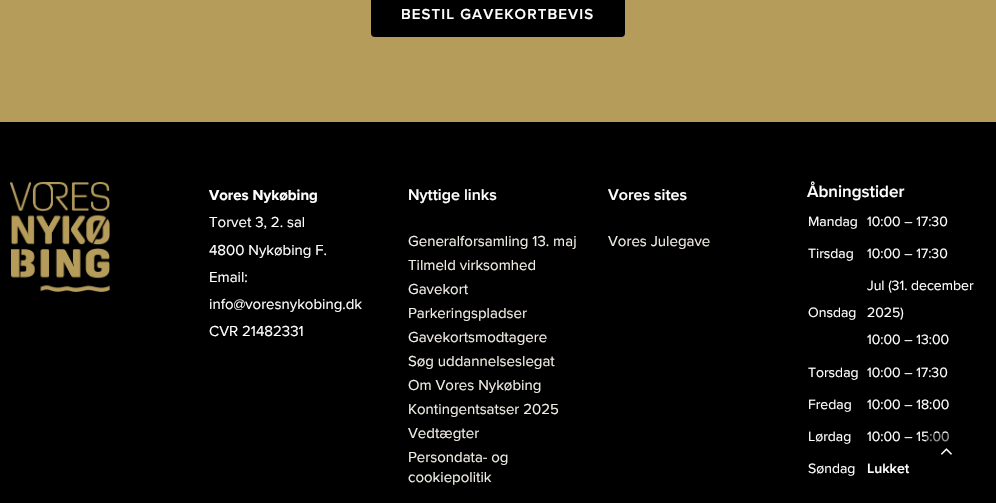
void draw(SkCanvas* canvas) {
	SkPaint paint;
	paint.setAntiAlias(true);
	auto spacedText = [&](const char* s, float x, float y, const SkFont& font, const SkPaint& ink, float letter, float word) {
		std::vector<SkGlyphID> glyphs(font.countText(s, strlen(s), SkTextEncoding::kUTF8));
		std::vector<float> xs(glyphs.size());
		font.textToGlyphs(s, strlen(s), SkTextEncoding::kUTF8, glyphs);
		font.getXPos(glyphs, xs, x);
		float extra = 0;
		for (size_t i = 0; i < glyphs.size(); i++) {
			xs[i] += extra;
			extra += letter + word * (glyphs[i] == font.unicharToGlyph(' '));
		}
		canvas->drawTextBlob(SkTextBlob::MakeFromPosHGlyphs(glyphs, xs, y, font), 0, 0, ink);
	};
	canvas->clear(0xffb59c5b);
	paint.setColor(0xff000000);
	canvas->drawRoundRect(SkRect::MakeXYWH(371, -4, 254, 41), 4, 4, paint);
	SkFont f1(fontMgr->matchFamilyStyle("Proxima Nova", SkFontStyle(600, SkFontStyle::kNormal_Width, SkFontStyle::kUpright_Slant)), 15);
	f1.setSubpixel(true);
	paint.setColor(0xffffffff);
	spacedText("BESTIL GAVEKORTBEVIS", 401, 19, f1, paint, 1.1, 0);
	paint.setColor(0xff000000);
	canvas->drawRect(SkRect::MakeXYWH(0, 122, 996, 381), paint);
	canvas->drawImageRect(SkImages::DeferredFromEncodedData(SkData::MakeFromFileName("img1.png")), SkRect::MakeXYWH(10, 182, 100, 110), SkSamplingOptions());
	SkFont f2(fontMgr->matchFamilyStyle("Proxima Nova", SkFontStyle::Bold()), 15);
	f2.setSubpixel(true);
	paint.setColor(0xffffffff);
	canvas->drawString("Vores Nykøbing", 209, 200, f2, paint);
	SkFont f3(fontMgr->matchFamilyStyle("Proxima Nova", SkFontStyle::Normal()), 15);
	f3.setSubpixel(true);
	canvas->drawString("Torvet 3, 2. sal", 209, 227, f3, paint);
	canvas->drawString("4800 Nykøbing F.", 209, 255, f3, paint);
	canvas->drawString("Email:", 209, 282, f3, paint);
	canvas->drawString("info@voresnykobing.dk", 209, 309, f3, paint);
	canvas->drawString("CVR 21482331", 209, 336, f3, paint);
	SkFont f4(fontMgr->matchFamilyStyle("Proxima Nova", SkFontStyle(600, SkFontStyle::kNormal_Width, SkFontStyle::kUpright_Slant)), 16);
	f4.setSubpixel(true);
	canvas->drawString("Nyttige links", 408, 200, f4, paint);
	paint.setColor(0xfff0ede4);
	canvas->drawString("Generalforsamling 13. maj", 408, 246, f3, paint);
	canvas->drawString("Tilmeld virksomhed", 408, 270, f3, paint);
	canvas->drawString("Gavekort", 408, 294, f3, paint);
	canvas->drawString("Parkeringspladser", 408, 318, f3, paint);
	canvas->drawString("Gavekortsmodtagere", 408, 342, f3, paint);
	canvas->drawString("Søg uddannelseslegat", 408, 366, f3, paint);
	canvas->drawString("Om Vores Nykøbing", 408, 390, f3, paint);
	canvas->drawString("Kontingentsatser 2025", 408, 414, f3, paint);
	canvas->drawString("Vedtægter", 408, 438, f3, paint);
	canvas->drawString("Persondata- og", 408, 462, f3, paint);
	canvas->drawString("cookiepolitik", 408, 482, f3, paint);
	paint.setColor(0xffffffff);
	canvas->drawString("Vores sites", 608, 200, f4, paint);
	paint.setColor(0xfff0ede4);
	canvas->drawString("Vores Julegave", 608, 246, f3, paint);
	SkFont f5(fontMgr->matchFamilyStyle("Proxima Nova", SkFontStyle(600, SkFontStyle::kNormal_Width, SkFontStyle::kUpright_Slant)), 17);
	f5.setSubpixel(true);
	paint.setColor(0xffffffff);
	canvas->drawString("Åbningstider", 807, 197, f5, paint);
	SkFont f6(fontMgr->matchFamilyStyle("Proxima Nova", SkFontStyle::Normal()), 14);
	f6.setSubpixel(true);
	canvas->drawString("Mandag", 808, 226, f6, paint);
	canvas->drawString("10:00 – 17:30", 867, 226, f6, paint);
	canvas->drawString("Tirsdag", 808, 258, f6, paint);
	canvas->drawString("10:00 – 17:30", 867, 258, f6, paint);
	canvas->drawString("Onsdag", 808, 317, f6, paint);
	canvas->drawString("Jul (31. december", 867, 290, f6, paint);
	canvas->drawString("2025)", 867, 317, f6, paint);
	canvas->drawString("10:00 – 13:00", 867, 344, f6, paint);
	canvas->drawString("Torsdag", 808, 377, f6, paint);
	canvas->drawString("10:00 – 17:30", 867, 377, f6, paint);
	canvas->drawString("Fredag", 808, 409, f6, paint);
	canvas->drawString("10:00 – 18:00", 867, 409, f6, paint);
	canvas->drawString("Lørdag", 808, 441, f6, paint);
	canvas->drawString("10:00 – 15:00", 867, 441, f6, paint);
	canvas->drawString("Søndag", 808, 473, f6, paint);
	SkFont f7(fontMgr->matchFamilyStyle("Proxima Nova", SkFontStyle(600, SkFontStyle::kNormal_Width, SkFontStyle::kUpright_Slant)), 14);
	f7.setSubpixel(true);
	canvas->drawString("Lukket", 867, 473, f7, paint);
	paint.setColor(0x66000000);
	canvas->drawRoundRect(SkRect::MakeXYWH(926, 433, 40, 40), 3, 3, paint);
	canvas->drawImageRect(SkImages::DeferredFromEncodedData(SkData::MakeFromFileName("img2.png")), SkRect::MakeXYWH(940, 448, 12, 7), SkSamplingOptions());
}
